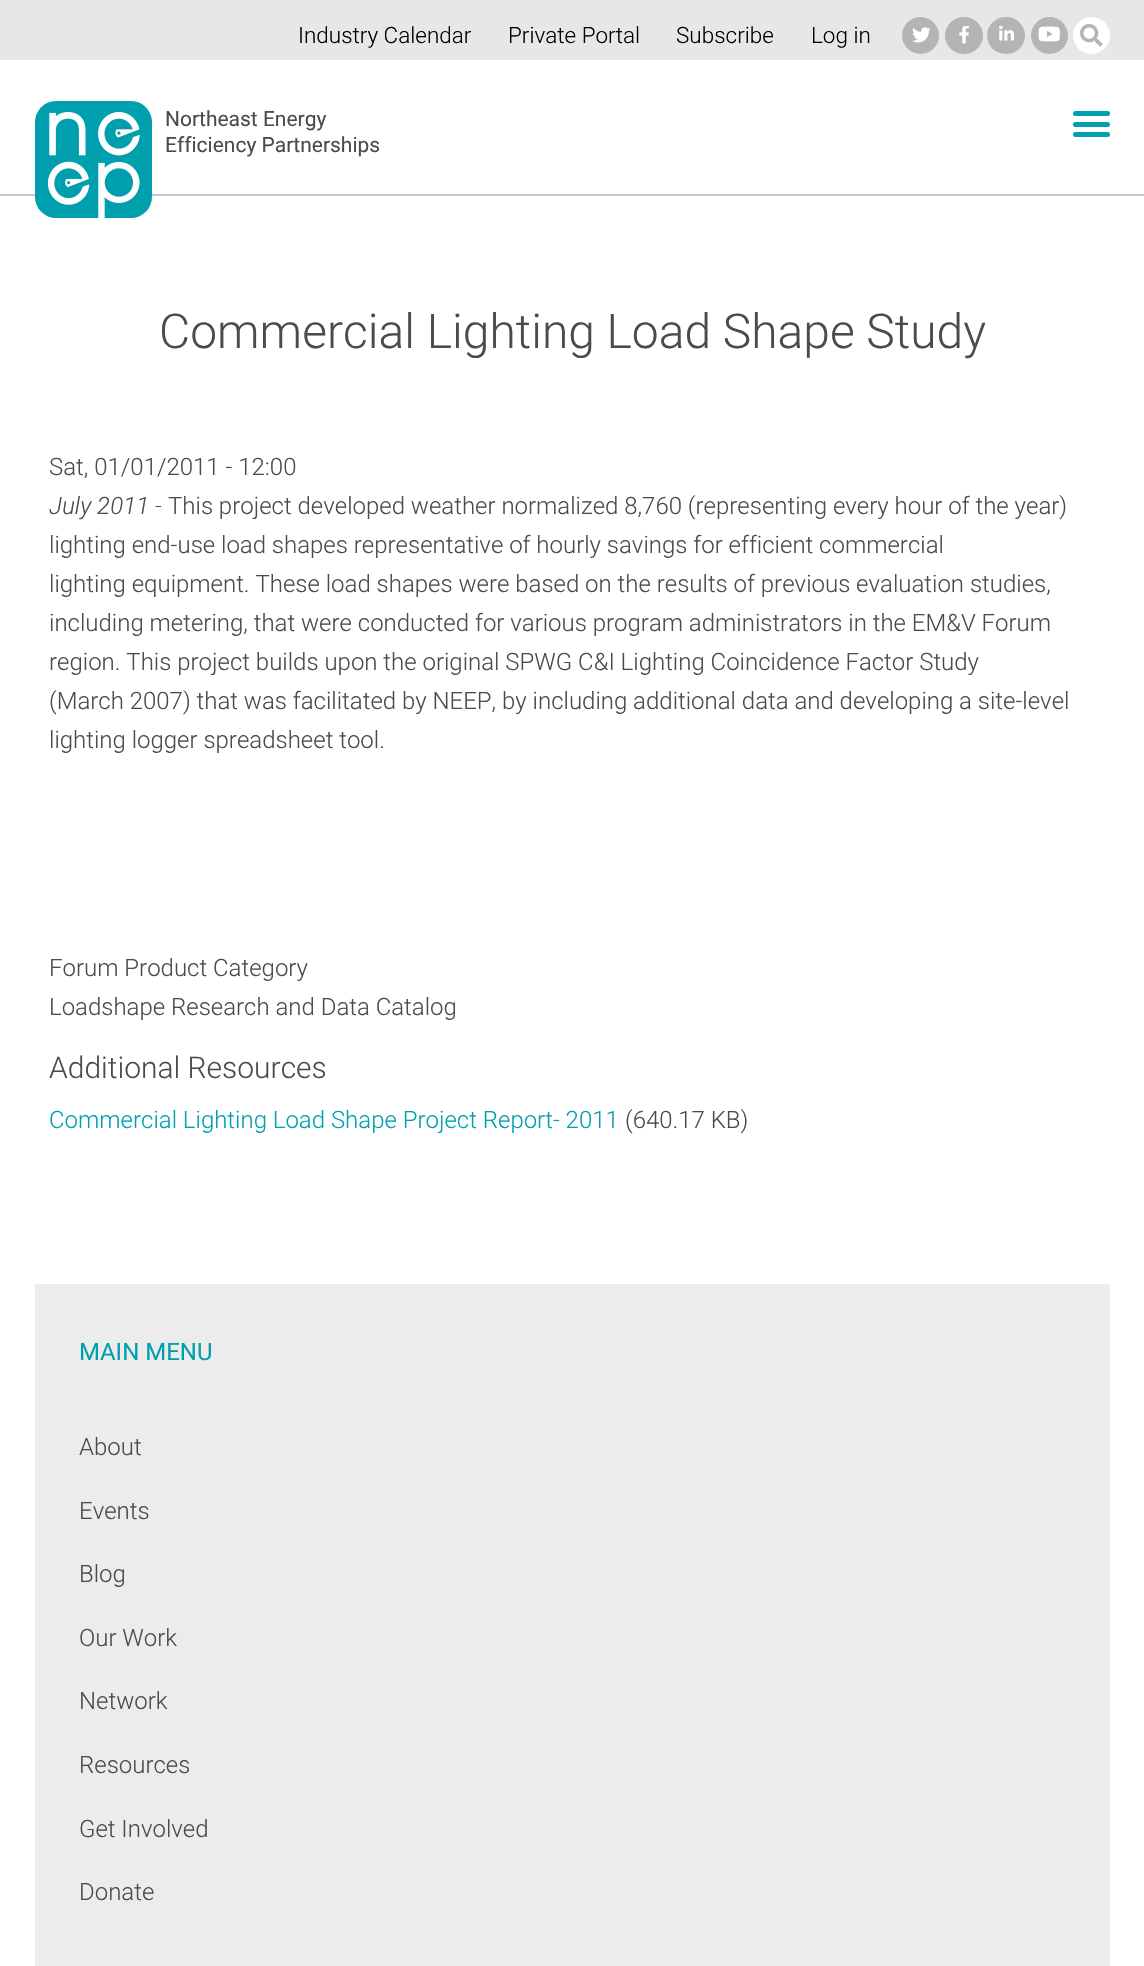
void draw(SkCanvas* canvas) {
	SkPaint paint;
	paint.setAntiAlias(true);
	canvas->clear(0xffffffff);
	paint.setColor(0xffe7e7e7);
	canvas->drawRect(SkRect::MakeXYWH(0, 0, 1144, 60), paint);
	SkFont f1(fontMgr->matchFamilyStyle("Roboto", SkFontStyle(300, SkFontStyle::kNormal_Width, SkFontStyle::kUpright_Slant)), 22.5);
	f1.setSubpixel(true);
	paint.setColor(0xff000000);
	canvas->drawString("Industry Calendar", 298, 43, f1, paint);
	canvas->drawString("Private Portal", 508, 43, f1, paint);
	canvas->drawString("Subscribe", 676, 43, f1, paint);
	canvas->drawString("Log in", 811, 43, f1, paint);
	paint.setColor(0xffb4b4b4);
	canvas->drawCircle(920.5, 35.5, 18.5, paint);
	canvas->drawImageRect(SkImages::DeferredFromEncodedData(SkData::MakeFromFileName("img1.png")), SkRect::MakeXYWH(912, 27, 18, 16), SkSamplingOptions());
	canvas->drawRoundRect(SkRect::MakeXYWH(945, 17, 38, 37), 18.5, 18.5, paint);
	canvas->drawImageRect(SkImages::DeferredFromEncodedData(SkData::MakeFromFileName("img2.png")), SkRect::MakeXYWH(959, 26, 10, 18), SkSamplingOptions());
	canvas->drawRoundRect(SkRect::MakeXYWH(987, 17, 38, 37), 18.5, 18.5, paint);
	canvas->drawImageRect(SkImages::DeferredFromEncodedData(SkData::MakeFromFileName("img3.png")), SkRect::MakeXYWH(999, 26, 15, 15), SkSamplingOptions());
	canvas->drawCircle(1049.5, 35.5, 18.5, paint);
	canvas->drawImageRect(SkImages::DeferredFromEncodedData(SkData::MakeFromFileName("img4.png")), SkRect::MakeXYWH(1038, 26, 22, 16), SkSamplingOptions());
	paint.setColor(0xffffffff);
	canvas->drawCircle(1091.5, 35.5, 18.5, paint);
	canvas->drawImageRect(SkImages::DeferredFromEncodedData(SkData::MakeFromFileName("img5.png")), SkRect::MakeXYWH(1080, 24, 23, 23), SkSamplingOptions());
	paint.setColor(0xffc9c9c9);
	canvas->drawRect(SkRect::MakeXYWH(0, 194, 1144, 2), paint);
	paint.setColor(0xff009fae);
	canvas->drawRoundRect(SkRect::MakeXYWH(35, 101, 117, 117), 21, 21, paint);
	canvas->drawImageRect(SkImages::DeferredFromEncodedData(SkData::MakeFromFileName("img6.png")), SkRect::MakeXYWH(47, 112, 93, 106), SkSamplingOptions());
	SkFont f2(fontMgr->matchFamilyStyle("Roboto", SkFontStyle::Normal()), 21);
	f2.setSubpixel(true);
	paint.setColor(0xff4b4b4b);
	canvas->drawString("Northeast Energy", 165, 126, f2, paint);
	canvas->drawString("Efficiency Partnerships", 165, 152, f2, paint);
	paint.setColor(0xff009fae);
	canvas->drawRoundRect(SkRect::MakeXYWH(1073, 122, 37, 5), 2.5, 2.5, paint);
	canvas->drawRoundRect(SkRect::MakeXYWH(1073, 111, 37, 5), 2.5, 2.5, paint);
	canvas->drawRoundRect(SkRect::MakeXYWH(1073, 132, 37, 5), 2.5, 2.5, paint);
	SkFont f3(fontMgr->matchFamilyStyle("Roboto", SkFontStyle(300, SkFontStyle::kNormal_Width, SkFontStyle::kUpright_Slant)), 48);
	f3.setSubpixel(true);
	paint.setColor(0xff4b4b4b);
	canvas->drawString("Commercial Lighting Load Shape Study", 159, 348, f3, paint);
	SkFont f4(fontMgr->matchFamilyStyle("Roboto", SkFontStyle(300, SkFontStyle::kNormal_Width, SkFontStyle::kUpright_Slant)), 24);
	f4.setSubpixel(true);
	canvas->drawString("Sat, 01/01/2011 - 12:00", 49, 475, f4, paint);
	SkFont f5(fontMgr->matchFamilyStyle("Roboto", SkFontStyle(300, SkFontStyle::kNormal_Width, SkFontStyle::kItalic_Slant)), 24);
	f5.setSubpixel(true);
	canvas->drawString("July 2011 -", 49, 514, f5, paint);
	canvas->drawString("This project developed weather normalized 8,760 (representing every hour of the year)", 168, 514, f4, paint);
	canvas->drawString("lighting end-use load shapes representative of hourly savings for efficient commercial", 49, 553, f4, paint);
	canvas->drawString("lighting equipment. These load shapes were based on the results of previous evaluation studies,", 49, 592, f4, paint);
	canvas->drawString("including metering, that were conducted for various program administrators in the EM&V Forum", 49, 631, f4, paint);
	canvas->drawString("region. This project builds upon the original SPWG C&I Lighting Coincidence Factor Study", 49, 670, f4, paint);
	canvas->drawString("(March 2007) that was facilitated by NEEP, by including additional data and developing a site-level", 49, 709, f4, paint);
	canvas->drawString("lighting logger spreadsheet tool.", 49, 748, f4, paint);
	canvas->drawString("Forum Product Category", 49, 976, f4, paint);
	canvas->drawString("Loadshape Research and Data Catalog", 49, 1015, f4, paint);
	SkFont f6(fontMgr->matchFamilyStyle("Roboto", SkFontStyle(300, SkFontStyle::kNormal_Width, SkFontStyle::kUpright_Slant)), 30);
	f6.setSubpixel(true);
	canvas->drawString("Additional Resources", 49, 1078, f6, paint);
	paint.setColor(0xff009fae);
	canvas->drawString("Commercial Lighting Load Shape Project Report- 2011", 49, 1128, f4, paint);
	paint.setColor(0xff4b4b4b);
	canvas->drawString("(640.17 KB)", 625, 1128, f4, paint);
	paint.setColor(0xffececec);
	canvas->drawRect(SkRect::MakeXYWH(35, 1284, 1075, 682), paint);
	SkFont f7(fontMgr->matchFamilyStyle("Roboto", SkFontStyle::Normal()), 24);
	f7.setSubpixel(true);
	paint.setColor(0xff009fae);
	canvas->drawString("MAIN MENU", 79, 1360, f7, paint);
	paint.setColor(0xff4b4b4b);
	canvas->drawString("About", 79, 1455, f4, paint);
	canvas->drawString("Events", 79, 1519, f4, paint);
	canvas->drawString("Blog", 79, 1582, f4, paint);
	canvas->drawString("Our Work", 79, 1646, f4, paint);
	canvas->drawString("Network", 79, 1709, f4, paint);
	canvas->drawString("Resources", 79, 1773, f4, paint);
	canvas->drawString("Get Involved", 79, 1837, f4, paint);
	canvas->drawString("Donate", 79, 1900, f4, paint);
}
